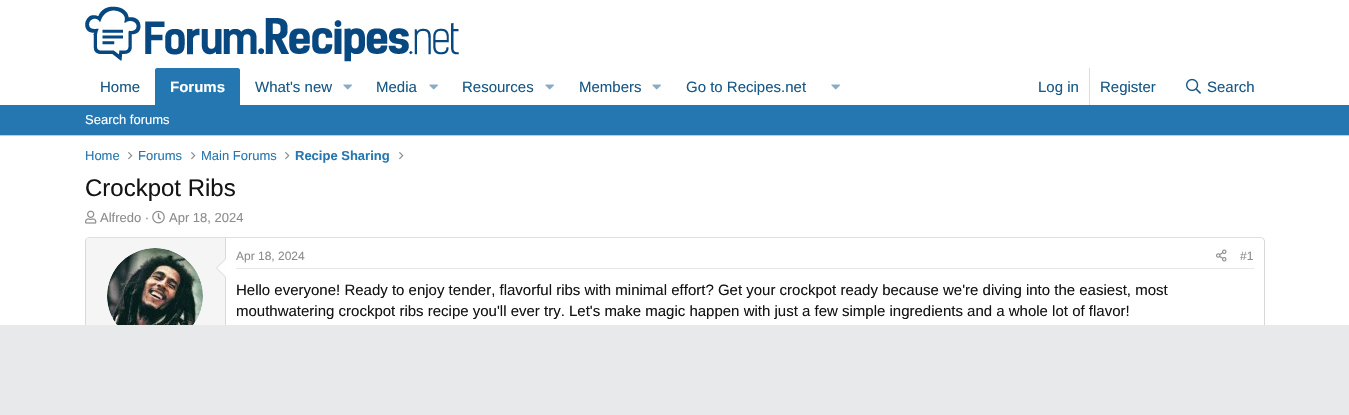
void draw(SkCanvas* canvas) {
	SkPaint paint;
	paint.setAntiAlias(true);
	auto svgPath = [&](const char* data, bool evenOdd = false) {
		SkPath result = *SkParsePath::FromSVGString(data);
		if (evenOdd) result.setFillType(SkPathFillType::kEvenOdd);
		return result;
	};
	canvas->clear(0xffffffff);
	canvas->drawImageRect(SkImages::DeferredFromEncodedData(SkData::MakeFromFileName("img1.png")), SkRect::MakeXYWH(85, 6, 374, 56), SkSamplingOptions());
	SkFont f1(fontMgr->matchFamilyStyle("Liberation Sans", SkFontStyle::Normal()), 15);
	f1.setSubpixel(true);
	paint.setColor(0xff185886);
	canvas->drawString("Home", 100, 92, f1, paint);
	paint.setColor(0xff2577b1);
	canvas->drawPath(svgPath("M157 68H238C239 68 240 69 240 70V105H155V70C155 69 156 68 157 68Z"), paint);
	SkFont f2(fontMgr->matchFamilyStyle("Liberation Sans", SkFontStyle::Bold()), 15);
	f2.setSubpixel(true);
	paint.setColor(0xffffffff);
	canvas->drawString("Forums", 170, 92, f2, paint);
	paint.setColor(0xff185886);
	canvas->drawString("What's new", 255, 92, f1, paint);
	canvas->drawImageRect(SkImages::DeferredFromEncodedData(SkData::MakeFromFileName("img2.png")), SkRect::MakeXYWH(343, 84, 9, 6), SkSamplingOptions());
	canvas->drawString("Media", 376, 92, f1, paint);
	canvas->drawImageRect(SkImages::DeferredFromEncodedData(SkData::MakeFromFileName("img2.png")), SkRect::MakeXYWH(429, 84, 9, 6), SkSamplingOptions());
	canvas->drawString("Resources", 462, 92, f1, paint);
	canvas->drawImageRect(SkImages::DeferredFromEncodedData(SkData::MakeFromFileName("img2.png")), SkRect::MakeXYWH(545, 84, 9, 6), SkSamplingOptions());
	canvas->drawString("Members", 579, 92, f1, paint);
	canvas->drawImageRect(SkImages::DeferredFromEncodedData(SkData::MakeFromFileName("img2.png")), SkRect::MakeXYWH(652, 84, 9, 6), SkSamplingOptions());
	canvas->drawString("Go to Recipes.net", 686, 92, f1, paint);
	canvas->drawImageRect(SkImages::DeferredFromEncodedData(SkData::MakeFromFileName("img2.png")), SkRect::MakeXYWH(831, 84, 9, 6), SkSamplingOptions());
	canvas->drawString("Log in", 1038, 92, f1, paint);
	paint.setColor(0xffdcdcdc);
	canvas->drawRect(SkRect::MakeXYWH(1089, 68, 1, 37), paint);
	paint.setColor(0xff185886);
	canvas->drawString("Register", 1100, 92, f1, paint);
	canvas->drawImageRect(SkImages::DeferredFromEncodedData(SkData::MakeFromFileName("img3.png")), SkRect::MakeXYWH(1186, 78, 15, 16), SkSamplingOptions());
	canvas->drawString("Search", 1207, 92, f1, paint);
	paint.setColor(0xff2577b1);
	canvas->drawRect(SkRect::MakeXYWH(0, 105, 1349, 30), paint);
	paint.setColor(0xffcbcbcb);
	canvas->drawRect(SkRect::MakeXYWH(0, 135, 1349, 1), paint);
	SkFont f3(fontMgr->matchFamilyStyle("Liberation Sans", SkFontStyle::Normal()), 13);
	f3.setSubpixel(true);
	paint.setColor(0xffffffff);
	canvas->drawString("Search forums", 85, 124, f3, paint);
	paint.setColor(0xff2577b1);
	canvas->drawString("Home", 85, 160, f3, paint);
	canvas->drawImageRect(SkImages::DeferredFromEncodedData(SkData::MakeFromFileName("img4.png")), SkRect::MakeXYWH(128, 152, 5, 8), SkSamplingOptions());
	canvas->drawString("Forums", 138, 160, f3, paint);
	canvas->drawImageRect(SkImages::DeferredFromEncodedData(SkData::MakeFromFileName("img4.png")), SkRect::MakeXYWH(191, 152, 5, 8), SkSamplingOptions());
	canvas->drawString("Main Forums", 201, 160, f3, paint);
	canvas->drawImageRect(SkImages::DeferredFromEncodedData(SkData::MakeFromFileName("img4.png")), SkRect::MakeXYWH(285, 152, 5, 8), SkSamplingOptions());
	SkFont f4(fontMgr->matchFamilyStyle("Liberation Sans", SkFontStyle::Bold()), 13);
	f4.setSubpixel(true);
	canvas->drawString("Recipe Sharing", 295, 160, f4, paint);
	canvas->drawImageRect(SkImages::DeferredFromEncodedData(SkData::MakeFromFileName("img4.png")), SkRect::MakeXYWH(399, 152, 5, 8), SkSamplingOptions());
	SkFont f5(fontMgr->matchFamilyStyle("Liberation Sans", SkFontStyle::Normal()), 24);
	f5.setSubpixel(true);
	paint.setColor(0xff141414);
	canvas->drawString("Crockpot Ribs", 85, 196, f5, paint);
	canvas->drawImageRect(SkImages::DeferredFromEncodedData(SkData::MakeFromFileName("img5.png")), SkRect::MakeXYWH(85, 210, 12, 14), SkSamplingOptions());
	paint.setColor(0xff8c8c8c);
	canvas->drawString("Alfredo ·", 100, 222, f3, paint);
	canvas->drawImageRect(SkImages::DeferredFromEncodedData(SkData::MakeFromFileName("img6.png")), SkRect::MakeXYWH(152, 210, 13, 14), SkSamplingOptions());
	canvas->drawString("Apr 18, 2024", 169, 222, f3, paint);
	paint.setStroke(true);
	paint.setStrokeWidth(1);
	paint.setColor(0xffdfdfdf);
	canvas->drawPath(svgPath("M86.5 238.5L89 237.5H1261L1263.5 238.5"), paint);
	paint.setColor(0xffd8d8d8);
	canvas->drawPath(svgPath("M1263.5 238.5L1264.5 241V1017L1263.5 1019.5"), paint);
	canvas->drawPath(svgPath("M86.5 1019.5L85.5 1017V241L86.5 238.5"), paint);
	paint.setStroke(false);
	paint.setColor(0xfff5f5f5);
	canvas->drawPath(svgPath("M89 238H226V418H89C87.5 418 86 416.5 86 415V241C86 239.5 87.5 238 89 238Z"), paint);
	paint.setColor(0xffd8d8d8);
	canvas->drawRect(SkRect::MakeXYWH(225, 238, 1, 87), paint);
	paint.setColor(0xfffefefe);
	canvas->drawCircle(155, 296, 48, paint);
	canvas->drawImageRect(SkImages::DeferredFromEncodedData(SkData::MakeFromFileName("img7.png")), SkRect::MakeXYWH(107, 248, 96, 77), SkSamplingOptions());
	paint.setColor(0xffd8d8d8);
	canvas->drawPath(svgPath("M226 258V278L216 268Z"), paint);
	paint.setColor(0xfffefefe);
	canvas->drawPath(svgPath("M226 259V277L217 268Z"), paint);
	paint.setColor(0xffe7e7e7);
	canvas->drawRect(SkRect::MakeXYWH(236, 268, 1018, 1), paint);
	SkFont f6(fontMgr->matchFamilyStyle("Liberation Sans", SkFontStyle::Normal()), 12);
	f6.setSubpixel(true);
	paint.setColor(0xff8c8c8c);
	canvas->drawString("Apr 18, 2024", 236, 260, f6, paint);
	canvas->drawImageRect(SkImages::DeferredFromEncodedData(SkData::MakeFromFileName("img8.png")), SkRect::MakeXYWH(1216, 249, 11, 13), SkSamplingOptions());
	canvas->drawString("#1", 1240, 260, f6, paint);
	paint.setColor(0xff141414);
	canvas->drawString("Hello everyone! Ready to enjoy tender, flavorful ribs with minimal effort? Get your crockpot ready because we're diving into the easiest, most", 236, 295, f1, paint);
	canvas->drawString("mouthwatering crockpot ribs recipe you'll ever try. Let's make magic happen with just a few simple ingredients and a whole lot of flavor!", 236, 316, f1, paint);
	paint.setColor(0xffe8e9eb);
	canvas->drawRect(SkRect::MakeXYWH(0, 325, 1349, 90), paint);
}
